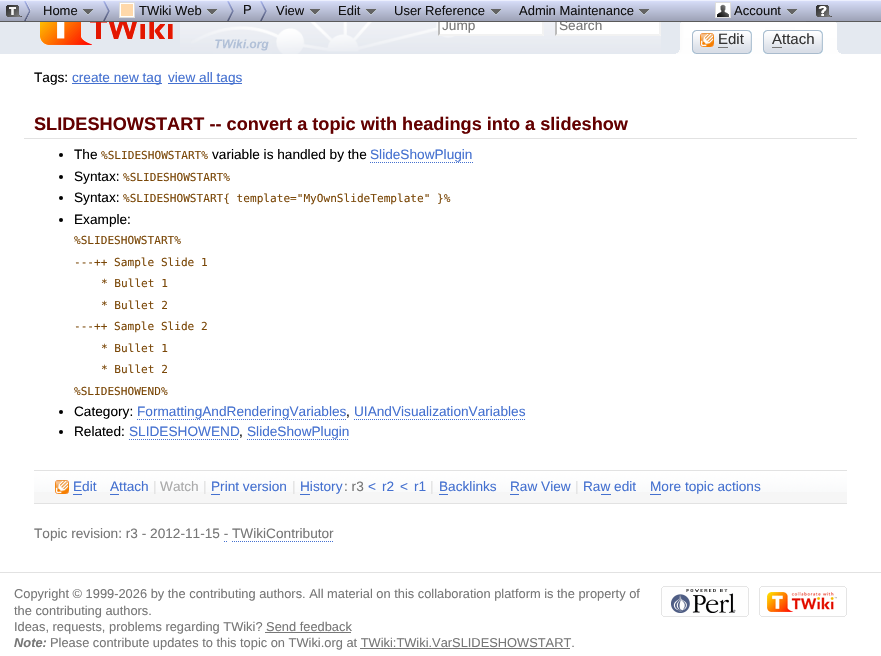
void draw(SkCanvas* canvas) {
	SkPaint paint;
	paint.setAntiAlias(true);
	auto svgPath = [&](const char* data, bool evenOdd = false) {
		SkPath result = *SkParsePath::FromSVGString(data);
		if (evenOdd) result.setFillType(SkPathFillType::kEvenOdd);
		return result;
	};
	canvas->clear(0xffffffff);
	paint.setColor(0xffe4e9f0);
	canvas->drawRect(SkRect::MakeXYWH(0, 22, 881, 32), paint);
	canvas->drawImageRect(SkImages::DeferredFromEncodedData(SkData::MakeFromFileName("img1.png")), SkRect::MakeXYWH(0, 0, 6, 22), SkSamplingOptions());
	canvas->drawImageRect(SkImages::DeferredFromEncodedData(SkData::MakeFromFileName("img14.png")), SkRect::MakeXYWH(180, 22, 481, 32), SkSamplingOptions());
	paint.setColor(0xffffffff);
	canvas->drawRect(SkRect::MakeXYWH(438, 22, 106, 14), paint);
	paint.setColor(0xfff2f2f2);
	canvas->drawPath(svgPath("M544 14V36L542 34V16Z"), paint);
	canvas->drawPath(svgPath("M544 36H438L440 34H542Z"), paint);
	paint.setColor(0xffbbbbbb);
	canvas->drawPath(svgPath("M438 36V14L440 16V34Z"), paint);
	SkFont f1(fontMgr->matchFamilyStyle("Liberation Sans", SkFontStyle::Normal()), 13.65);
	f1.setSubpixel(true);
	paint.setColor(0xff777777);
	canvas->drawString("Jump", 442, 30, f1, paint);
	paint.setColor(0xffffffff);
	canvas->drawRect(SkRect::MakeXYWH(555, 22, 106, 14), paint);
	paint.setColor(0xfff2f2f2);
	canvas->drawPath(svgPath("M661 14V36L659 34V16Z"), paint);
	canvas->drawPath(svgPath("M661 36H555L557 34H659Z"), paint);
	paint.setColor(0xffbbbbbb);
	canvas->drawPath(svgPath("M555 36V14L557 16V34Z"), paint);
	paint.setColor(0xff777777);
	canvas->drawString("Search", 559, 30, f1, paint);
	canvas->drawImageRect(SkImages::DeferredFromEncodedData(SkData::MakeFromFileName("img2.png")), SkRect::MakeXYWH(6, 0, 875, 22), SkSamplingOptions());
	canvas->drawImageRect(SkImages::DeferredFromEncodedData(SkData::MakeFromFileName("img3.png")), SkRect::MakeXYWH(6, 1, 25, 20), SkSamplingOptions());
	SkFont f2(fontMgr->matchFamilyStyle("Liberation Sans", SkFontStyle::Normal()), 13);
	f2.setSubpixel(true);
	paint.setColor(0xff111111);
	canvas->drawString("Home", 43, 15, f2, paint);
	canvas->drawImageRect(SkImages::DeferredFromEncodedData(SkData::MakeFromFileName("img4.png")), SkRect::MakeXYWH(82, 9, 12, 6), SkSamplingOptions());
	canvas->drawImageRect(SkImages::DeferredFromEncodedData(SkData::MakeFromFileName("img5.png")), SkRect::MakeXYWH(103, 1, 7, 20), SkSamplingOptions());
	paint.setColor(0xffffd8aa);
	canvas->drawRect(SkRect::MakeXYWH(121, 4, 12, 12), paint);
	canvas->drawImageRect(SkImages::DeferredFromEncodedData(SkData::MakeFromFileName("img6.png")), SkRect::MakeXYWH(119, 2, 16, 16), SkSamplingOptions());
	paint.setColor(0xff111111);
	canvas->drawString("TWiki Web", 139, 15, f2, paint);
	canvas->drawImageRect(SkImages::DeferredFromEncodedData(SkData::MakeFromFileName("img7.png")), SkRect::MakeXYWH(206, 9, 12, 6), SkSamplingOptions());
	canvas->drawImageRect(SkImages::DeferredFromEncodedData(SkData::MakeFromFileName("img5.png")), SkRect::MakeXYWH(227, 1, 7, 20), SkSamplingOptions());
	canvas->drawString("P", 243, 14, f2, paint);
	canvas->drawImageRect(SkImages::DeferredFromEncodedData(SkData::MakeFromFileName("img5.png")), SkRect::MakeXYWH(260, 1, 7, 20), SkSamplingOptions());
	canvas->drawString("View", 276, 15, f2, paint);
	canvas->drawImageRect(SkImages::DeferredFromEncodedData(SkData::MakeFromFileName("img8.png")), SkRect::MakeXYWH(309, 9, 12, 6), SkSamplingOptions());
	canvas->drawString("Edit", 338, 15, f2, paint);
	canvas->drawImageRect(SkImages::DeferredFromEncodedData(SkData::MakeFromFileName("img9.png")), SkRect::MakeXYWH(365, 9, 12, 6), SkSamplingOptions());
	canvas->drawString("User Reference", 394, 15, f2, paint);
	canvas->drawImageRect(SkImages::DeferredFromEncodedData(SkData::MakeFromFileName("img10.png")), SkRect::MakeXYWH(490, 9, 12, 6), SkSamplingOptions());
	canvas->drawString("Admin Maintenance", 519, 15, f2, paint);
	canvas->drawImageRect(SkImages::DeferredFromEncodedData(SkData::MakeFromFileName("img7.png")), SkRect::MakeXYWH(638, 9, 12, 6), SkSamplingOptions());
	paint.setColor(0xff5e5e5f);
	canvas->drawRect(SkRect::MakeXYWH(708, 21, 98, 1), paint);
	canvas->drawImageRect(SkImages::DeferredFromEncodedData(SkData::MakeFromFileName("img11.png")), SkRect::MakeXYWH(715, 2, 16, 16), SkSamplingOptions());
	paint.setColor(0xff111111);
	canvas->drawString("Account", 734, 15, f2, paint);
	canvas->drawImageRect(SkImages::DeferredFromEncodedData(SkData::MakeFromFileName("img9.png")), SkRect::MakeXYWH(786, 9, 12, 6), SkSamplingOptions());
	canvas->drawImageRect(SkImages::DeferredFromEncodedData(SkData::MakeFromFileName("img12.png")), SkRect::MakeXYWH(816, 5, 16, 12), SkSamplingOptions());
	canvas->drawImageRect(SkImages::DeferredFromEncodedData(SkData::MakeFromFileName("img13.png")), SkRect::MakeXYWH(40, 22, 133, 23), SkSamplingOptions());
	canvas->drawImageRect(SkImages::DeferredFromEncodedData(SkData::MakeFromFileName("img15.png")), SkRect::MakeXYWH(676, 22, 165, 32), SkSamplingOptions());
	canvas->drawImageRect(SkImages::DeferredFromEncodedData(SkData::MakeFromFileName("img16.png")), SkRect::MakeXYWH(692, 30, 60, 24), SkSamplingOptions());
	canvas->drawImageRect(SkImages::DeferredFromEncodedData(SkData::MakeFromFileName("img17.png")), SkRect::MakeXYWH(700, 33, 14, 14), SkSamplingOptions());
	SkFont f3(fontMgr->matchFamilyStyle("Liberation Sans", SkFontStyle::Normal()), 15);
	f3.setSubpixel(true);
	paint.setColor(0xff333333);
	canvas->drawString("Edit", 718, 44, f3, paint);
	paint.setColor(0xff777777);
	canvas->drawRect(SkRect::MakeXYWH(718, 47, 10, 1), paint);
	canvas->drawImageRect(SkImages::DeferredFromEncodedData(SkData::MakeFromFileName("img16.png")), SkRect::MakeXYWH(763, 30, 60, 24), SkSamplingOptions());
	paint.setColor(0xff333333);
	canvas->drawString("Attach", 772, 44, f3, paint);
	paint.setColor(0xff777777);
	canvas->drawRect(SkRect::MakeXYWH(772, 47, 10, 1), paint);
	paint.setColor(0xff000000);
	canvas->drawString("Tags:", 34, 82, f1, paint);
	paint.setColor(0xff4571d0);
	canvas->drawRect(SkRect::MakeXYWH(72, 83, 90, 1), paint);
	canvas->drawString("create new tag", 72, 82, f1, paint);
	canvas->drawRect(SkRect::MakeXYWH(168, 83, 74, 1), paint);
	canvas->drawString("view all tags", 168, 82, f1, paint);
	paint.setColor(0xffe2e2e2);
	canvas->drawRect(SkRect::MakeXYWH(24, 138, 833, 1), paint);
	SkFont f4(fontMgr->matchFamilyStyle("Liberation Sans", SkFontStyle::Bold()), 18.15);
	f4.setSubpixel(true);
	paint.setColor(0xff630000);
	canvas->drawString("SLIDESHOWSTART -- convert a topic with headings into a slideshow", 34, 130, f4, paint);
	paint.setColor(0xff000000);
	canvas->drawCircle(61, 155, 2, paint);
	canvas->drawString("The", 74, 159, f1, paint);
	SkFont f5(fontMgr->matchFamilyStyle("DejaVu Sans Mono", SkFontStyle::Normal()), 11.1);
	f5.setSubpixel(true);
	paint.setColor(0xff7a4707);
	canvas->drawString("%SLIDESHOWSTART%", 101, 159, f5, paint);
	paint.setColor(0xff000000);
	canvas->drawString("variable is handled by the", 212, 159, f1, paint);
	paint.setColor(0xff4571d0);
	canvas->drawString("SlideShowPlugin", 370, 159, f1, paint);
	paint.setStroke(true);
	paint.setStrokeWidth(1);
	paint.setPathEffect(SkDashPathEffect::Make({{1, 1}}, 0));
	canvas->drawPath(svgPath("M370 162.5H473"), paint);
	paint.setPathEffect(nullptr);
	paint.setStroke(false);
	paint.setColor(0xff000000);
	canvas->drawCircle(61, 177, 2, paint);
	canvas->drawString("Syntax:", 74, 181, f1, paint);
	paint.setColor(0xff7a4707);
	canvas->drawString("%SLIDESHOWSTART%", 123, 181, f5, paint);
	paint.setColor(0xff000000);
	canvas->drawCircle(61, 198, 2, paint);
	canvas->drawString("Syntax:", 74, 202, f1, paint);
	paint.setColor(0xff7a4707);
	canvas->drawString("%SLIDESHOWSTART{ template=\"MyOwnSlideTemplate\" }%", 123, 202, f5, paint);
	paint.setColor(0xff000000);
	canvas->drawCircle(61, 220, 2, paint);
	canvas->drawString("Example:", 74, 224, f1, paint);
	paint.setColor(0xff7a4707);
	canvas->drawString("%SLIDESHOWSTART%", 74, 244, f5, paint);
	canvas->drawString("---++ Sample Slide 1", 74, 266, f5, paint);
	canvas->drawString("* Bullet 1", 101, 287, f5, paint);
	canvas->drawString("* Bullet 2", 101, 309, f5, paint);
	canvas->drawString("---++ Sample Slide 2", 74, 330, f5, paint);
	canvas->drawString("* Bullet 1", 101, 352, f5, paint);
	canvas->drawString("* Bullet 2", 101, 373, f5, paint);
	canvas->drawString("%SLIDESHOWEND%", 74, 395, f5, paint);
	paint.setColor(0xff000000);
	canvas->drawCircle(61, 412, 2, paint);
	canvas->drawString("Category:", 74, 416, f1, paint);
	paint.setColor(0xff4571d0);
	canvas->drawString("FormattingAndRenderingVariables", 137, 416, f1, paint);
	paint.setStroke(true);
	paint.setPathEffect(SkDashPathEffect::Make({{1, 1}}, 0));
	canvas->drawPath(svgPath("M137 419.5H346"), paint);
	paint.setPathEffect(nullptr);
	paint.setStroke(false);
	canvas->drawString("UIAndVisualizationVariables", 354, 416, f1, paint);
	paint.setStroke(true);
	paint.setPathEffect(SkDashPathEffect::Make({{1, 1}}, 0));
	canvas->drawPath(svgPath("M354 419.5H525"), paint);
	paint.setPathEffect(nullptr);
	paint.setStroke(false);
	paint.setColor(0xff000000);
	canvas->drawString(",", 346, 416, f1, paint);
	canvas->drawCircle(61, 432, 2, paint);
	canvas->drawString("Related:", 74, 436, f1, paint);
	paint.setColor(0xff4571d0);
	canvas->drawString("SLIDESHOWEND", 129, 436, f1, paint);
	paint.setStroke(true);
	paint.setPathEffect(SkDashPathEffect::Make({{1, 1}}, 0));
	canvas->drawPath(svgPath("M129 439.5H239"), paint);
	paint.setPathEffect(nullptr);
	paint.setStroke(false);
	canvas->drawString("SlideShowPlugin", 247, 436, f1, paint);
	paint.setStroke(true);
	paint.setPathEffect(SkDashPathEffect::Make({{1, 1}}, 0));
	canvas->drawPath(svgPath("M247 439.5H349"), paint);
	paint.setPathEffect(nullptr);
	paint.setStroke(false);
	paint.setColor(0xff000000);
	canvas->drawString(",", 239, 436, f1, paint);
	paint.setColor(0xfff6f6f6);
	canvas->drawRect(SkRect::MakeXYWH(34, 492, 813, 11), paint);
	paint.setColor(0xffe2e2e2);
	canvas->drawRect(SkRect::MakeXYWH(34, 503, 813, 1), paint);
	canvas->drawImageRect(SkImages::DeferredFromEncodedData(SkData::MakeFromFileName("img18.png")), SkRect::MakeXYWH(34, 471, 813, 21), SkSamplingOptions());
	canvas->drawRect(SkRect::MakeXYWH(34, 470, 813, 1), paint);
	canvas->drawImageRect(SkImages::DeferredFromEncodedData(SkData::MakeFromFileName("img19.png")), SkRect::MakeXYWH(55, 480, 14, 14), SkSamplingOptions());
	paint.setColor(0xff4571d0);
	canvas->drawString("Edit", 73, 491, f1, paint);
	canvas->drawRect(SkRect::MakeXYWH(73, 494, 9, 1), paint);
	canvas->drawString("Attach", 110, 491, f1, paint);
	canvas->drawRect(SkRect::MakeXYWH(110, 494, 9, 1), paint);
	paint.setColor(0xffe2e2e2);
	canvas->drawString("|", 153, 491, f1, paint);
	paint.setColor(0xffaaaaaa);
	canvas->drawString("Watch", 160, 491, f1, paint);
	paint.setColor(0xffe2e2e2);
	canvas->drawString("|", 203, 491, f1, paint);
	paint.setColor(0xff4571d0);
	canvas->drawString("Print version", 211, 491, f1, paint);
	canvas->drawRect(SkRect::MakeXYWH(211, 494, 9, 1), paint);
	paint.setColor(0xffe2e2e2);
	canvas->drawString("|", 292, 491, f1, paint);
	paint.setColor(0xff4571d0);
	canvas->drawString("History", 300, 491, f1, paint);
	canvas->drawRect(SkRect::MakeXYWH(300, 494, 10, 1), paint);
	paint.setColor(0xff777777);
	canvas->drawString(": r3", 344, 491, f1, paint);
	paint.setColor(0xff4571d0);
	canvas->drawString("<", 368, 491, f1, paint);
	canvas->drawString("r2", 382, 491, f1, paint);
	canvas->drawString("<", 400, 491, f1, paint);
	canvas->drawString("r1", 414, 491, f1, paint);
	paint.setColor(0xffe2e2e2);
	canvas->drawString("|", 430, 491, f1, paint);
	paint.setColor(0xff4571d0);
	canvas->drawString("Backlinks", 439, 491, f1, paint);
	canvas->drawRect(SkRect::MakeXYWH(439, 494, 9, 1), paint);
	canvas->drawString("Raw View", 510, 491, f1, paint);
	canvas->drawRect(SkRect::MakeXYWH(510, 494, 9, 1), paint);
	paint.setColor(0xffe2e2e2);
	canvas->drawString("|", 575, 491, f1, paint);
	paint.setColor(0xff4571d0);
	canvas->drawString("Raw edit", 583, 491, f1, paint);
	canvas->drawRect(SkRect::MakeXYWH(601, 494, 10, 1), paint);
	canvas->drawString("More topic actions", 650, 491, f1, paint);
	canvas->drawRect(SkRect::MakeXYWH(650, 494, 11, 1), paint);
	paint.setColor(0xff777777);
	canvas->drawString("Topic revision: r3 - 2012-11-15 - TWikiContributor", 34, 538, f1, paint);
	paint.setStroke(true);
	paint.setColor(0xff4571d0);
	canvas->drawPath(svgPath("M224 541.5H225M226 541.5H227"), paint);
	paint.setPathEffect(SkDashPathEffect::Make({{1, 1}}, 0));
	canvas->drawPath(svgPath("M232 541.5H334"), paint);
	paint.setPathEffect(nullptr);
	paint.setStroke(false);
	paint.setColor(0xffe2e2e2);
	canvas->drawRect(SkRect::MakeXYWH(0, 572, 881, 1), paint);
	SkFont f6(fontMgr->matchFamilyStyle("Liberation Sans", SkFontStyle::Normal()), 12.85);
	f6.setSubpixel(true);
	paint.setColor(0xff777777);
	canvas->drawString("Copyright © 1999-2026 by the contributing authors. All material on this collaboration platform is the property of", 14, 598, f6, paint);
	canvas->drawImageRect(SkImages::DeferredFromEncodedData(SkData::MakeFromFileName("img20.png")), SkRect::MakeXYWH(661, 586, 88, 31), SkSamplingOptions());
	canvas->drawImageRect(SkImages::DeferredFromEncodedData(SkData::MakeFromFileName("img21.png")), SkRect::MakeXYWH(759, 586, 88, 31), SkSamplingOptions());
	canvas->drawString("the contributing authors.", 14, 615, f6, paint);
	canvas->drawString("Ideas, requests, problems regarding TWiki? Send feedback", 14, 631, f6, paint);
	canvas->drawRect(SkRect::MakeXYWH(265, 632, 86, 1), paint);
	SkFont f7(fontMgr->matchFamilyStyle("Liberation Sans", SkFontStyle::BoldItalic()), 12.85);
	f7.setSubpixel(true);
	canvas->drawString("Note:", 14, 647, f7, paint);
	canvas->drawString("Please contribute updates to this topic on TWiki.org at TWiki:TWiki.VarSLIDESHOWSTART.", 50, 647, f6, paint);
	canvas->drawRect(SkRect::MakeXYWH(360, 648, 210, 1), paint);
}
